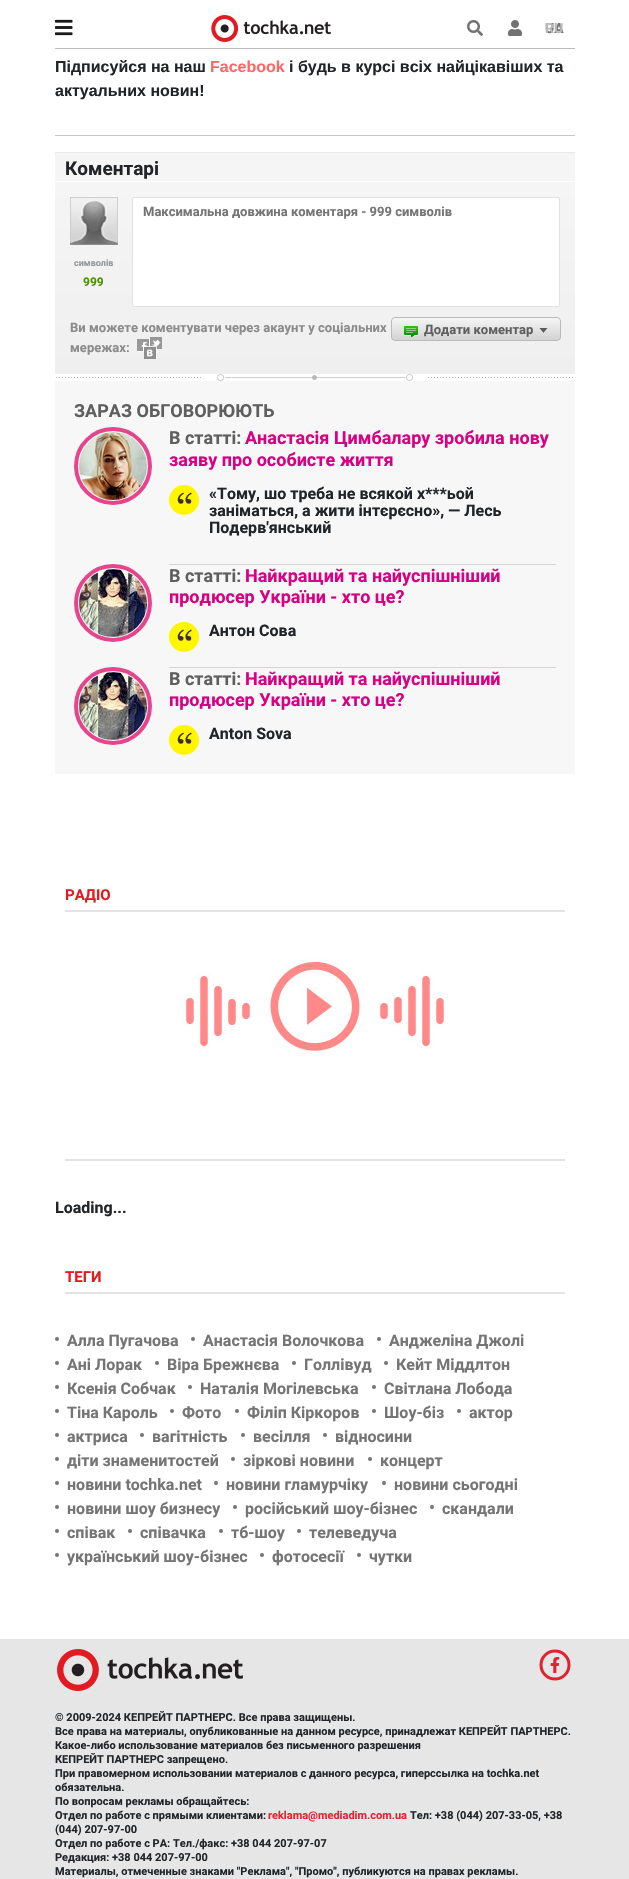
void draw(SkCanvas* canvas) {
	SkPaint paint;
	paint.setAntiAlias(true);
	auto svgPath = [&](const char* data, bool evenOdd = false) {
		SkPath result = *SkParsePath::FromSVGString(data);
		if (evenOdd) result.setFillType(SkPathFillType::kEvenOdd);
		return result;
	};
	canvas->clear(0xffffffff);
	paint.setColor(0xffbbbbbb);
	canvas->drawRect(SkRect::MakeXYWH(55, 48, 520, 1), paint);
	canvas->drawImageRect(SkImages::DeferredFromEncodedData(SkData::MakeFromFileName("img1.png")), SkRect::MakeXYWH(55, 19, 18, 17), SkSamplingOptions());
	canvas->drawImageRect(SkImages::DeferredFromEncodedData(SkData::MakeFromFileName("img2.png")), SkRect::MakeXYWH(211, 15, 120, 27), SkSamplingOptions());
	canvas->drawImageRect(SkImages::DeferredFromEncodedData(SkData::MakeFromFileName("img3.png")), SkRect::MakeXYWH(467, 20, 16, 16), SkSamplingOptions());
	canvas->drawImageRect(SkImages::DeferredFromEncodedData(SkData::MakeFromFileName("img4.png")), SkRect::MakeXYWH(508, 20, 14, 16), SkSamplingOptions());
	SkFont f1(fontMgr->matchFamilyStyle("Roboto", SkFontStyle::Bold()), 14);
	f1.setSubpixel(true);
	paint.setColor(0xff757575);
	canvas->drawString("UA", 545, 33, f1, paint);
	paint.setColor(0xffb9b9b9);
	canvas->drawString("RU", 545, 33, f1, paint);
	SkFont f2(fontMgr->matchFamilyStyle("Liberation Sans", SkFontStyle::Bold()), 16);
	f2.setSubpixel(true);
	paint.setColor(0xff212529);
	canvas->drawString("Підписуйся на наш", 55, 72, f2, paint);
	paint.setColor(0xffff6666);
	canvas->drawString("Facebook", 210, 72, f2, paint);
	paint.setColor(0xff212529);
	canvas->drawString("і будь в курсі всіх найцікавіших та", 289, 72, f2, paint);
	canvas->drawString("актуальних новин!", 55, 96, f2, paint);
	paint.setColor(0xffc8c9ca);
	canvas->drawRect(SkRect::MakeXYWH(55, 135, 520, 1), paint);
	paint.setColor(0xfff5f5f5);
	canvas->drawRect(SkRect::MakeXYWH(55, 153, 520, 28), paint);
	paint.setColor(0xffe9e9e9);
	canvas->drawRect(SkRect::MakeXYWH(55, 152, 520, 1), paint);
	SkFont f3(fontMgr->matchFamilyStyle("Roboto", SkFontStyle::Bold()), 19);
	f3.setSubpixel(true);
	paint.setColor(0xff212529);
	canvas->drawString("Коментарі", 65, 175, f3, paint);
	{
		const SkColor colors[] = {0xfff5f5f5, 0xffefefef};
		const float stops[] = {0, 1};
		const SkPoint ends[] = {{315, 182}, {315, 374}};
		paint.setShader(SkGradientShader::MakeLinear(ends, colors, stops, 2, SkTileMode::kClamp));
		paint.setAlpha(255);
	}
	canvas->drawRect(SkRect::MakeXYWH(55, 182, 520, 192), paint);
	paint.setShader(nullptr);
	paint.setColor(0xffffffff);
	canvas->drawRoundRect(SkRect::MakeXYWH(132.5, 197.5, 427, 109), 1.5, 1.5, paint);
	paint.setStroke(true);
	paint.setStrokeWidth(1);
	paint.setColor(0xffe1e1e1);
	canvas->drawRoundRect(SkRect::MakeXYWH(132.5, 197.5, 427, 109), 1.5, 1.5, paint);
	SkFont f4(fontMgr->matchFamilyStyle("Roboto", SkFontStyle::Bold()), 13);
	f4.setSubpixel(true);
	paint.setStroke(false);
	paint.setColor(0xff757575);
	canvas->drawString("Максимальна довжина коментаря - 999 символів", 143, 216, f4, paint);
	paint.setColor(0xff8b8b8b);
	canvas->drawString("Ви можете коментувати через акаунт у соціальних", 70, 332, f4, paint);
	canvas->drawString("мережах:", 70, 352, f4, paint);
	canvas->drawImageRect(SkImages::DeferredFromEncodedData(SkData::MakeFromFileName("img5.png")), SkRect::MakeXYWH(137, 337, 25, 22), SkSamplingOptions());
	canvas->save();
	canvas->clipPath(svgPath("M395 317H557C559 317 561 319 561 321V337C561 339 559 341 557 341H395C393 341 391 339 391 337V321C391 319 393 317 395 317Z"), true);
	{
		const SkColor colors[] = {0xfff5f5f5, 0xffd3d3d3};
		const float stops[] = {0, 1};
		const SkPoint ends[] = {{476, 318}, {476, 340}};
		paint.setShader(SkGradientShader::MakeLinear(ends, colors, stops, 2, SkTileMode::kClamp));
		paint.setAlpha(255);
	}
	canvas->drawRect(SkRect::MakeXYWH(391, 318, 170, 22), paint);
	canvas->restore();
	paint.setStroke(true);
	paint.setShader(nullptr);
	paint.setColor(0xffbababa);
	canvas->drawRoundRect(SkRect::MakeXYWH(391.5, 317.5, 169, 23), 3.5, 3.5, paint);
	canvas->drawImageRect(SkImages::DeferredFromEncodedData(SkData::MakeFromFileName("img6.png")), SkRect::MakeXYWH(404, 326, 14, 11), SkSamplingOptions());
	paint.setStroke(false);
	paint.setColor(0xff5f5f5f);
	canvas->drawString("Додати коментар", 424, 334, f4, paint);
	canvas->drawImageRect(SkImages::DeferredFromEncodedData(SkData::MakeFromFileName("img7.png")), SkRect::MakeXYWH(539, 328, 9, 5), SkSamplingOptions());
	canvas->drawImageRect(SkImages::DeferredFromEncodedData(SkData::MakeFromFileName("img8.png")), SkRect::MakeXYWH(70, 197, 48, 48), SkSamplingOptions());
	SkFont f5(fontMgr->matchFamilyStyle("Roboto", SkFontStyle::Bold()), 9);
	f5.setSubpixel(true);
	paint.setColor(0xff8f989c);
	canvas->drawString("символів", 74, 266, f5, paint);
	SkFont f6(fontMgr->matchFamilyStyle("Roboto", SkFontStyle::Bold()), 12);
	f6.setSubpixel(true);
	paint.setColor(0xff4f9403);
	canvas->drawString("999", 83, 286, f6, paint);
	canvas->drawImageRect(SkImages::DeferredFromEncodedData(SkData::MakeFromFileName("img9.png")), SkRect::MakeXYWH(56, 374, 517, 7), SkSamplingOptions());
	paint.setColor(0xfff7f7f7);
	canvas->drawRect(SkRect::MakeXYWH(55, 381, 520, 393), paint);
	SkFont f7(fontMgr->matchFamilyStyle("Roboto", SkFontStyle::Bold()), 18);
	f7.setSubpixel(true);
	paint.setColor(0xff5f5f5f);
	canvas->drawString("ЗАРАЗ ОБГОВОРЮЮТЬ", 74, 417, f7, paint);
	paint.setStroke(true);
	paint.setStrokeWidth(4);
	paint.setColor(0xffe5458d);
	canvas->drawCircle(113, 466, 37, paint);
	canvas->drawImageRect(SkImages::DeferredFromEncodedData(SkData::MakeFromFileName("img10.png")), SkRect::MakeXYWH(79, 432, 68, 68), SkSamplingOptions());
	paint.setStroke(false);
	paint.setColor(0xff5f5f5f);
	canvas->drawString("В статті:", 169, 444, f7, paint);
	paint.setColor(0xffd80084);
	canvas->drawString("Анастасія Цимбалару зробила нову", 245, 444, f7, paint);
	canvas->drawString("заяву про особисте життя", 169, 466, f7, paint);
	paint.setColor(0xfffff600);
	canvas->drawCircle(184, 500, 15, paint);
	canvas->drawImageRect(SkImages::DeferredFromEncodedData(SkData::MakeFromFileName("img11.png")), SkRect::MakeXYWH(177, 492, 15, 12), SkSamplingOptions());
	SkFont f8(fontMgr->matchFamilyStyle("Roboto", SkFontStyle::Bold()), 16);
	f8.setSubpixel(true);
	paint.setColor(0xff212529);
	canvas->drawString("«Тому, шо треба не всякой х***ьой", 209, 499, f8, paint);
	canvas->drawString("заніматься, а жити інтєрєсно», — Лесь", 209, 516, f8, paint);
	canvas->drawString("Подерв'янський", 209, 533, f8, paint);
	paint.setStroke(true);
	paint.setColor(0xffe5458d);
	canvas->drawCircle(113, 603, 37, paint);
	canvas->drawImageRect(SkImages::DeferredFromEncodedData(SkData::MakeFromFileName("img12.png")), SkRect::MakeXYWH(79, 569, 68, 68), SkSamplingOptions());
	paint.setStroke(false);
	paint.setColor(0xffd5d5d5);
	canvas->drawRect(SkRect::MakeXYWH(169, 564, 387, 1), paint);
	paint.setColor(0xff5f5f5f);
	canvas->drawString("В статті:", 169, 582, f7, paint);
	paint.setColor(0xffd80084);
	canvas->drawString("Найкращий та найуспішніший", 245, 582, f7, paint);
	canvas->drawString("продюсер України - хто це?", 169, 603, f7, paint);
	paint.setColor(0xfffff600);
	canvas->drawCircle(184, 637, 15, paint);
	canvas->drawImageRect(SkImages::DeferredFromEncodedData(SkData::MakeFromFileName("img11.png")), SkRect::MakeXYWH(177, 629, 15, 12), SkSamplingOptions());
	paint.setColor(0xff212529);
	canvas->drawString("Антон Сова", 209, 636, f8, paint);
	paint.setStroke(true);
	paint.setColor(0xffe5458d);
	canvas->drawCircle(113, 706, 37, paint);
	canvas->drawImageRect(SkImages::DeferredFromEncodedData(SkData::MakeFromFileName("img13.png")), SkRect::MakeXYWH(79, 672, 68, 68), SkSamplingOptions());
	paint.setStroke(false);
	paint.setColor(0xffd5d5d5);
	canvas->drawRect(SkRect::MakeXYWH(169, 667, 387, 1), paint);
	paint.setColor(0xff5f5f5f);
	canvas->drawString("В статті:", 169, 685, f7, paint);
	paint.setColor(0xffd80084);
	canvas->drawString("Найкращий та найуспішніший", 245, 685, f7, paint);
	canvas->drawString("продюсер України - хто це?", 169, 706, f7, paint);
	paint.setColor(0xfffff600);
	canvas->drawCircle(184, 740, 15, paint);
	canvas->drawImageRect(SkImages::DeferredFromEncodedData(SkData::MakeFromFileName("img11.png")), SkRect::MakeXYWH(177, 732, 15, 12), SkSamplingOptions());
	paint.setColor(0xff212529);
	canvas->drawString("Anton Sova", 209, 739, f8, paint);
	paint.setColor(0xffe3e3e3);
	canvas->drawRect(SkRect::MakeXYWH(65, 910, 500, 2), paint);
	SkFont f9(fontMgr->matchFamilyStyle("Roboto", SkFontStyle::Bold()), 15);
	f9.setSubpixel(true);
	paint.setColor(0xffe21a22);
	canvas->drawString("РАДІО", 65, 900, f9, paint);
	canvas->drawImageRect(SkImages::DeferredFromEncodedData(SkData::MakeFromFileName("img14.png")), SkRect::MakeXYWH(181, 955, 264, 96), SkSamplingOptions());
	paint.setColor(0xffe3e3e3);
	canvas->drawRect(SkRect::MakeXYWH(65, 1159, 500, 2), paint);
	paint.setColor(0xff212529);
	canvas->drawString("Loading...", 55, 1213, f8, paint);
	paint.setColor(0xffe3e3e3);
	canvas->drawRect(SkRect::MakeXYWH(65, 1292, 500, 2), paint);
	paint.setColor(0xffe21a22);
	canvas->drawString("ТЕГИ", 65, 1282, f9, paint);
	paint.setColor(0xff757575);
	canvas->drawCircle(57, 1339, 2, paint);
	canvas->drawString("Алла Пугачова", 67, 1346, f8, paint);
	canvas->drawCircle(193, 1339, 2, paint);
	canvas->drawString("Анастасія Волочкова", 203, 1346, f8, paint);
	canvas->drawCircle(379, 1339, 2, paint);
	canvas->drawString("Анджеліна Джолі", 389, 1346, f8, paint);
	canvas->drawCircle(57, 1363, 2, paint);
	canvas->drawString("Ані Лорак", 67, 1370, f8, paint);
	canvas->drawCircle(157, 1363, 2, paint);
	canvas->drawString("Віра Брежнєва", 167, 1370, f8, paint);
	canvas->drawCircle(294, 1363, 2, paint);
	canvas->drawString("Голлівуд", 304, 1370, f8, paint);
	canvas->drawCircle(386, 1363, 2, paint);
	canvas->drawString("Кейт Міддлтон", 396, 1370, f8, paint);
	canvas->drawCircle(57, 1387, 2, paint);
	canvas->drawString("Ксенія Собчак", 67, 1394, f8, paint);
	canvas->drawCircle(190, 1387, 2, paint);
	canvas->drawString("Наталія Могілевська", 200, 1394, f8, paint);
	canvas->drawCircle(374, 1387, 2, paint);
	canvas->drawString("Світлана Лобода", 384, 1394, f8, paint);
	canvas->drawCircle(57, 1411, 2, paint);
	canvas->drawString("Тіна Кароль", 67, 1418, f8, paint);
	canvas->drawCircle(172, 1411, 2, paint);
	canvas->drawString("Фото", 182, 1418, f8, paint);
	canvas->drawCircle(237, 1411, 2, paint);
	canvas->drawString("Філіп Кіркоров", 247, 1418, f8, paint);
	canvas->drawCircle(374, 1411, 2, paint);
	canvas->drawString("Шоу-біз", 384, 1418, f8, paint);
	canvas->drawCircle(459, 1411, 2, paint);
	canvas->drawString("актор", 469, 1418, f8, paint);
	canvas->drawCircle(57, 1435, 2, paint);
	canvas->drawString("актриса", 67, 1442, f8, paint);
	canvas->drawCircle(142, 1435, 2, paint);
	canvas->drawString("вагітність", 152, 1442, f8, paint);
	canvas->drawCircle(243, 1435, 2, paint);
	canvas->drawString("весілля", 253, 1442, f8, paint);
	canvas->drawCircle(325, 1435, 2, paint);
	canvas->drawString("відносини", 335, 1442, f8, paint);
	canvas->drawCircle(57, 1459, 2, paint);
	canvas->drawString("діти знаменитостей", 67, 1466, f8, paint);
	canvas->drawCircle(233, 1459, 2, paint);
	canvas->drawString("зіркові новини", 243, 1466, f8, paint);
	canvas->drawCircle(370, 1459, 2, paint);
	canvas->drawString("концерт", 380, 1466, f8, paint);
	canvas->drawCircle(57, 1483, 2, paint);
	canvas->drawString("новини tochka.net", 67, 1490, f8, paint);
	canvas->drawCircle(216, 1483, 2, paint);
	canvas->drawString("новини гламурчіку", 226, 1490, f8, paint);
	canvas->drawCircle(384, 1483, 2, paint);
	canvas->drawString("новини сьогодні", 394, 1490, f8, paint);
	canvas->drawCircle(57, 1507, 2, paint);
	canvas->drawString("новини шоу бизнесу", 67, 1514, f8, paint);
	canvas->drawCircle(235, 1507, 2, paint);
	canvas->drawString("російський шоу-бізнес", 245, 1514, f8, paint);
	canvas->drawCircle(432, 1507, 2, paint);
	canvas->drawString("скандали", 442, 1514, f8, paint);
	canvas->drawCircle(57, 1531, 2, paint);
	canvas->drawString("співак", 67, 1538, f8, paint);
	canvas->drawCircle(130, 1531, 2, paint);
	canvas->drawString("співачка", 140, 1538, f8, paint);
	canvas->drawCircle(221, 1531, 2, paint);
	canvas->drawString("тб-шоу", 231, 1538, f8, paint);
	canvas->drawCircle(299, 1531, 2, paint);
	canvas->drawString("телеведуча", 309, 1538, f8, paint);
	canvas->drawCircle(57, 1555, 2, paint);
	canvas->drawString("український шоу-бізнес", 67, 1562, f8, paint);
	canvas->drawCircle(262, 1555, 2, paint);
	canvas->drawString("фотосесії", 272, 1562, f8, paint);
	canvas->drawCircle(359, 1555, 2, paint);
	canvas->drawString("чутки", 369, 1562, f8, paint);
	paint.setColor(0xffe6e6e6);
	canvas->drawRect(SkRect::MakeXYWH(0, 1639, 629, 240), paint);
	canvas->drawImageRect(SkImages::DeferredFromEncodedData(SkData::MakeFromFileName("img15.png")), SkRect::MakeXYWH(57, 1649, 186, 42), SkSamplingOptions());
	canvas->drawImageRect(SkImages::DeferredFromEncodedData(SkData::MakeFromFileName("img16.png")), SkRect::MakeXYWH(539, 1649, 32, 32), SkSamplingOptions());
	canvas->drawImageRect(SkImages::DeferredFromEncodedData(SkData::MakeFromFileName("img17.png")), SkRect::MakeXYWH(550, 1657, 10, 16), SkSamplingOptions());
	SkFont f10(fontMgr->matchFamilyStyle("Roboto", SkFontStyle::Bold()), 11);
	f10.setSubpixel(true);
	paint.setColor(0xff212529);
	canvas->drawString("© 2009-2024 КЕПРЕЙТ ПАРТНЕРС. Все права защищены.", 55, 1721, f10, paint);
	canvas->drawString("Все права на материалы, опубликованные на данном ресурсе, принадлежат КЕПРЕЙТ ПАРТНЕРС.", 55, 1735, f10, paint);
	canvas->drawString("Какое-либо использование материалов без письменного разрешения", 55, 1749, f10, paint);
	canvas->drawString("КЕПРЕЙТ ПАРТНЕРС запрещено.", 55, 1763, f10, paint);
	canvas->drawString("При правомерном использовании материалов с данного ресурса, гиперссылка на tochka.net", 55, 1777, f10, paint);
	canvas->drawString("обязательна.", 55, 1791, f10, paint);
	canvas->drawString("По вопросам рекламы обращайтесь:", 55, 1805, f10, paint);
	canvas->drawString("Отдел по работе с прямыми клиентами:", 55, 1819, f10, paint);
	paint.setColor(0xffe2232f);
	canvas->drawString("reklama@mediadim.com.ua", 268, 1819, f10, paint);
	paint.setColor(0xff212529);
	canvas->drawString("Тел: +38 (044) 207-33-05, +38", 410, 1819, f10, paint);
	canvas->drawString("(044) 207-97-00", 55, 1833, f10, paint);
	canvas->drawString("Отдел по работе с РА: Тел./факс: +38 044 207-97-07", 55, 1847, f10, paint);
	canvas->drawString("Редакция: +38 044 207-97-00", 55, 1861, f10, paint);
	canvas->drawString("Материалы, отмеченные знаками \"Реклама\", \"Промо\", публикуются на правах рекламы.", 55, 1875, f10, paint);
}
